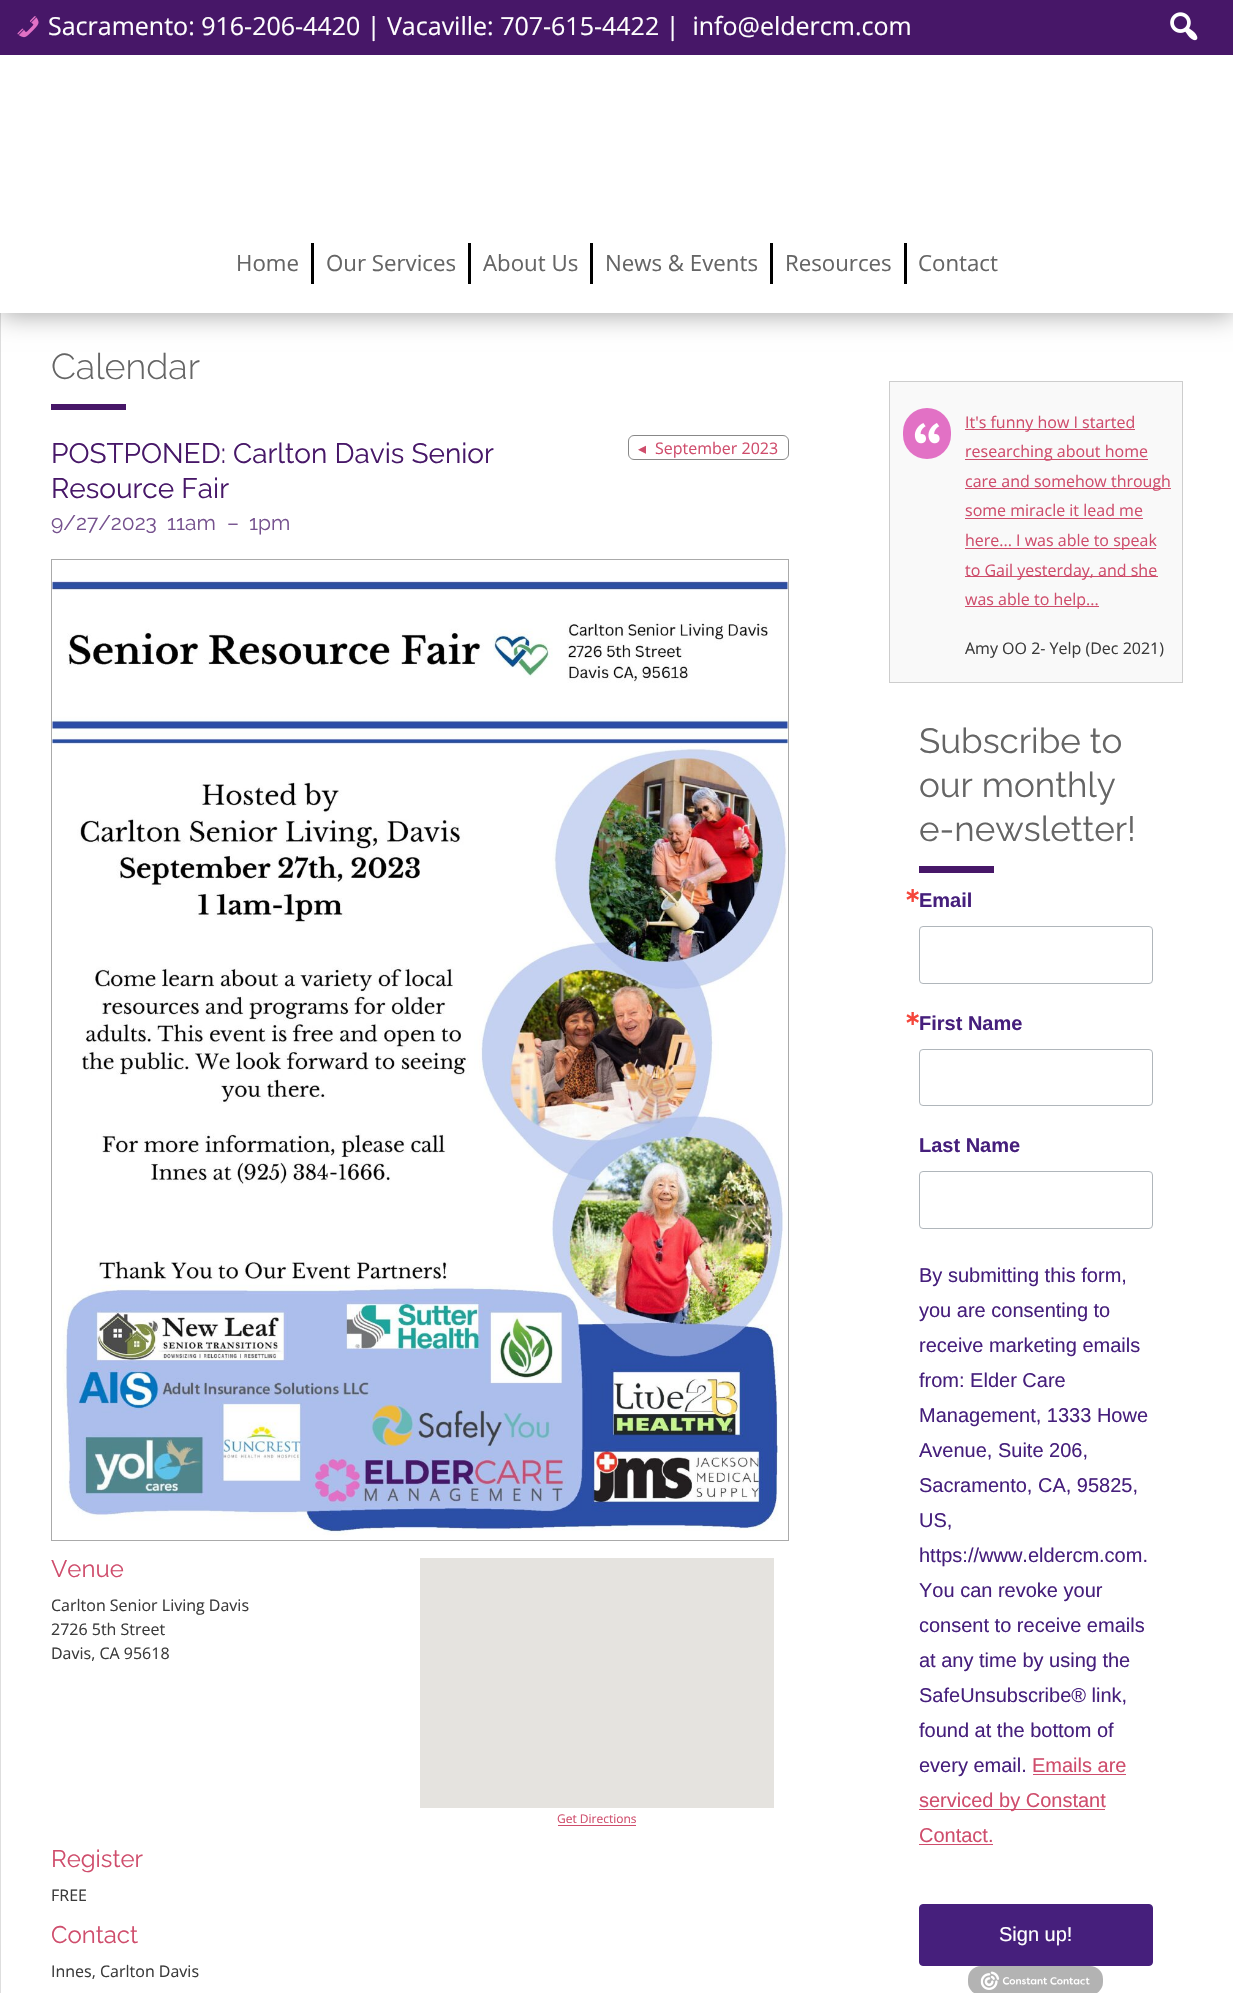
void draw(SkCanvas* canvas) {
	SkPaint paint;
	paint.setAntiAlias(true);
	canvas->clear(0xffffffff);
	paint.setColor(0xffdedede);
	canvas->drawRect(SkRect::MakeXYWH(0, 313, 1, 1680), paint);
	paint.setColor(0x59000000);
	paint.setMaskFilter(SkMaskFilter::MakeBlur(kNormal_SkBlurStyle, 12.5));
	canvas->drawRect(SkRect::MakeXYWH(0, 3, 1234, 312), paint);
	paint.setMaskFilter(nullptr);
	paint.setColor(0xffffffff);
	canvas->drawRect(SkRect::MakeXYWH(0, 55, 1233, 258), paint);
	paint.setColor(0xff471768);
	canvas->drawRect(SkRect::MakeXYWH(0, 0, 1233, 55), paint);
	canvas->drawImageRect(SkImages::DeferredFromEncodedData(SkData::MakeFromFileName("img1.png")), SkRect::MakeXYWH(17, 16, 22, 22), SkSamplingOptions());
	SkFont f1(fontMgr->matchFamilyStyle("Open Sans", SkFontStyle::Normal()), 25);
	f1.setSubpixel(true);
	paint.setColor(0xffffffff);
	canvas->drawString("Sacramento: 916-206-4420 | Vacaville: 707-615-4422 |  info@eldercm.com", 48, 35, f1, paint);
	canvas->drawImageRect(SkImages::DeferredFromEncodedData(SkData::MakeFromFileName("img2.png")), SkRect::MakeXYWH(1170, 12, 28, 29), SkSamplingOptions());
	paint.setColor(0xff000000);
	canvas->drawRect(SkRect::MakeXYWH(311, 243, 3, 41), paint);
	SkFont f2(fontMgr->matchFamilyStyle("Open Sans", SkFontStyle::Normal()), 22.25);
	f2.setSubpixel(true);
	paint.setColor(0xff656565);
	canvas->drawString("Home", 236, 271, f2, paint);
	paint.setColor(0xff000000);
	canvas->drawRect(SkRect::MakeXYWH(468, 243, 3, 41), paint);
	paint.setColor(0xff656565);
	canvas->drawString("Our Services", 326, 271, f2, paint);
	paint.setColor(0xff000000);
	canvas->drawRect(SkRect::MakeXYWH(590, 243, 3, 41), paint);
	paint.setColor(0xff656565);
	canvas->drawString("About Us", 483, 271, f2, paint);
	paint.setColor(0xff000000);
	canvas->drawRect(SkRect::MakeXYWH(770, 243, 3, 41), paint);
	paint.setColor(0xff656565);
	canvas->drawString("News & Events", 605, 271, f2, paint);
	paint.setColor(0xff000000);
	canvas->drawRect(SkRect::MakeXYWH(904, 243, 3, 41), paint);
	paint.setColor(0xff656565);
	canvas->drawString("Resources", 785, 271, f2, paint);
	canvas->drawString("Contact", 918, 271, f2, paint);
	SkFont f3(fontMgr->matchFamilyStyle("Raleway", SkFontStyle(300, SkFontStyle::kNormal_Width, SkFontStyle::kUpright_Slant)), 36);
	f3.setSubpixel(true);
	canvas->drawString("Calendar", 51, 379, f3, paint);
	paint.setColor(0xff471768);
	canvas->drawRect(SkRect::MakeXYWH(51, 404, 75, 6), paint);
	SkFont f4(fontMgr->matchFamilyStyle("Raleway", SkFontStyle::Normal()), 28);
	f4.setSubpixel(true);
	canvas->drawString("POSTPONED: Carlton Davis Senior", 51, 463, f4, paint);
	canvas->drawString("Resource Fair", 51, 498, f4, paint);
	SkFont f5(fontMgr->matchFamilyStyle("Raleway", SkFontStyle::Normal()), 21);
	f5.setSubpixel(true);
	paint.setColor(0xff75518e);
	canvas->drawString("9/27/2023", 51, 530, f5, paint);
	canvas->drawString("11am", 167, 530, f5, paint);
	canvas->drawString("–", 227, 530, f5, paint);
	canvas->drawString("1pm", 249, 530, f5, paint);
	paint.setStroke(true);
	paint.setStrokeWidth(1);
	paint.setColor(0xff888888);
	canvas->drawRoundRect(SkRect::MakeXYWH(628.5, 435.5, 160, 24), 5.5, 5.5, paint);
	SkFont f6(fontMgr->matchFamilyStyle("DejaVu Sans", SkFontStyle::Normal()), 16);
	f6.setSubpixel(true);
	paint.setStroke(false);
	paint.setColor(0xffcf4d6c);
	canvas->drawString("◂", 638, 454, f6, paint);
	SkFont f7(fontMgr->matchFamilyStyle("Open Sans", SkFontStyle::Normal()), 16);
	f7.setSubpixel(true);
	canvas->drawString("September 2023", 655, 454, f7, paint);
	paint.setStroke(true);
	paint.setColor(0xffaaaaaa);
	canvas->drawRect(SkRect::MakeXYWH(51.5, 559.5, 737, 981), paint);
	canvas->drawImageRect(SkImages::DeferredFromEncodedData(SkData::MakeFromFileName("img3.png")), SkRect::MakeXYWH(52, 580, 736, 956), SkSamplingOptions());
	SkFont f8(fontMgr->matchFamilyStyle("Raleway", SkFontStyle::Normal()), 24);
	f8.setSubpixel(true);
	paint.setStroke(false);
	paint.setColor(0xffcf4d6c);
	canvas->drawString("Venue", 51, 1577, f8, paint);
	paint.setColor(0xff3b3b3b);
	canvas->drawString("Carlton Senior Living Davis", 51, 1611, f7, paint);
	canvas->drawString("2726 5th Street", 51, 1635, f7, paint);
	canvas->drawString("Davis, CA 95618", 51, 1659, f7, paint);
	paint.setColor(0xffe5e3df);
	canvas->drawRect(SkRect::MakeXYWH(420, 1558, 354, 250), paint);
	SkFont f9(fontMgr->matchFamilyStyle("Open Sans", SkFontStyle::Normal()), 12);
	f9.setSubpixel(true);
	paint.setColor(0xffcf4d6c);
	canvas->drawString("Get Directions", 557, 1823, f9, paint);
	canvas->drawRect(SkRect::MakeXYWH(558, 1825, 78, 1), paint);
	canvas->drawString("Register", 51, 1867, f8, paint);
	paint.setColor(0xff3b3b3b);
	canvas->drawString("FREE", 51, 1901, f7, paint);
	paint.setColor(0xffcf4d6c);
	canvas->drawString("Contact", 51, 1943, f8, paint);
	paint.setColor(0xff3b3b3b);
	canvas->drawString("Innes, Carlton Davis", 51, 1977, f7, paint);
	paint.setColor(0xfff9f9f9);
	canvas->drawRect(SkRect::MakeXYWH(889.5, 381.5, 293, 301), paint);
	paint.setStroke(true);
	paint.setColor(0xffcdcdcd);
	canvas->drawRect(SkRect::MakeXYWH(889.5, 381.5, 293, 301), paint);
	paint.setStroke(false);
	paint.setColor(0xffe271c5);
	canvas->drawRoundRect(SkRect::MakeXYWH(903, 408, 48, 51), 24, 24, paint);
	canvas->drawImageRect(SkImages::DeferredFromEncodedData(SkData::MakeFromFileName("img4.png")), SkRect::MakeXYWH(914, 423, 26, 21), SkSamplingOptions());
	paint.setColor(0xffcf4d6c);
	canvas->drawRect(SkRect::MakeXYWH(965, 429, 170, 1), paint);
	canvas->drawString("It's funny how I started", 965, 428, f7, paint);
	canvas->drawRect(SkRect::MakeXYWH(965, 459, 183, 1), paint);
	canvas->drawString("researching about home", 965, 457, f7, paint);
	canvas->drawRect(SkRect::MakeXYWH(965, 488, 206, 1), paint);
	canvas->drawString("care and somehow through", 965, 487, f7, paint);
	canvas->drawString("some miracle it lead me", 965, 516, f7, paint);
	canvas->drawRect(SkRect::MakeXYWH(965, 518, 178, 1), paint);
	canvas->drawRect(SkRect::MakeXYWH(965, 548, 191, 1), paint);
	canvas->drawString("here... I was able to speak", 965, 546, f7, paint);
	canvas->drawRect(SkRect::MakeXYWH(965, 576, 193, 1), paint);
	canvas->drawString("to Gail yesterday, and she", 965, 576, f7, paint);
	canvas->drawRect(SkRect::MakeXYWH(965, 606, 134, 1), paint);
	canvas->drawString("was able to help...", 965, 605, f7, paint);
	paint.setColor(0xff3b3b3b);
	canvas->drawString("Amy OO 2- Yelp (Dec 2021)", 965, 654, f7, paint);
	SkFont f10(fontMgr->matchFamilyStyle("Raleway", SkFontStyle::Normal()), 35);
	f10.setSubpixel(true);
	paint.setColor(0xff656565);
	canvas->drawString("Subscribe to", 919, 753, f10, paint);
	canvas->drawString("our monthly", 919, 797, f10, paint);
	canvas->drawString("e-newsletter!", 919, 841, f10, paint);
	paint.setColor(0xff471768);
	canvas->drawRect(SkRect::MakeXYWH(919, 866, 75, 7), paint);
	SkFont f11(fontMgr->matchFamilyStyle("DejaVu Sans", SkFontStyle::Bold()), 20);
	f11.setSubpixel(true);
	paint.setColor(0xfff5463b);
	canvas->drawString("∗", 904, 902, f11, paint);
	SkFont f12(fontMgr->matchFamilyStyle("Liberation Sans", SkFontStyle::Bold()), 20);
	f12.setSubpixel(true);
	paint.setColor(0xff461f7c);
	canvas->drawString("Email", 919, 907, f12, paint);
	paint.setStroke(true);
	paint.setColor(0xffb0b6bb);
	canvas->drawRoundRect(SkRect::MakeXYWH(919.5, 926.5, 233, 57), 3.5, 3.5, paint);
	paint.setStroke(false);
	paint.setColor(0xfff5463b);
	canvas->drawString("∗", 904, 1025, f11, paint);
	paint.setColor(0xff461f7c);
	canvas->drawString("First Name", 919, 1030, f12, paint);
	paint.setStroke(true);
	paint.setColor(0xffb0b6bb);
	canvas->drawRoundRect(SkRect::MakeXYWH(919.5, 1049.5, 233, 56), 3.5, 3.5, paint);
	paint.setStroke(false);
	paint.setColor(0xff461f7c);
	canvas->drawString("Last Name", 919, 1152, f12, paint);
	paint.setStroke(true);
	paint.setColor(0xffb0b6bb);
	canvas->drawRoundRect(SkRect::MakeXYWH(919.5, 1171.5, 233, 57), 3.5, 3.5, paint);
	SkFont f13(fontMgr->matchFamilyStyle("Liberation Sans", SkFontStyle::Normal()), 20);
	f13.setSubpixel(true);
	paint.setStroke(false);
	paint.setColor(0xff461f7c);
	canvas->drawString("By submitting this form,", 919, 1282, f13, paint);
	canvas->drawString("you are consenting to", 919, 1317, f13, paint);
	canvas->drawString("receive marketing emails", 919, 1352, f13, paint);
	canvas->drawString("from: Elder Care", 919, 1387, f13, paint);
	canvas->drawString("Management, 1333 Howe", 919, 1422, f13, paint);
	canvas->drawString("Avenue, Suite 206,", 919, 1457, f13, paint);
	canvas->drawString("Sacramento, CA, 95825,", 919, 1492, f13, paint);
	canvas->drawString("US,", 919, 1527, f13, paint);
	canvas->drawString("https://www.eldercm.com.", 919, 1562, f13, paint);
	canvas->drawString("You can revoke your", 919, 1597, f13, paint);
	canvas->drawString("consent to receive emails", 919, 1632, f13, paint);
	canvas->drawString("at any time by using the", 919, 1667, f13, paint);
	canvas->drawString("SafeUnsubscribe® link,", 919, 1702, f13, paint);
	canvas->drawString("found at the bottom of", 919, 1737, f13, paint);
	canvas->drawString("every email.", 919, 1772, f13, paint);
	paint.setColor(0xffcf4d6c);
	canvas->drawString("Emails are", 1032, 1772, f13, paint);
	canvas->drawRect(SkRect::MakeXYWH(1033, 1774, 93, 1), paint);
	canvas->drawRect(SkRect::MakeXYWH(919, 1809, 186, 1), paint);
	canvas->drawString("serviced by Constant", 919, 1807, f13, paint);
	canvas->drawString("Contact.", 919, 1842, f13, paint);
	canvas->drawRect(SkRect::MakeXYWH(919, 1844, 74, 1), paint);
	paint.setColor(0xff461f7c);
	canvas->drawRoundRect(SkRect::MakeXYWH(919.5, 1904.5, 233, 61), 3.5, 3.5, paint);
	paint.setStroke(true);
	canvas->drawRoundRect(SkRect::MakeXYWH(919.5, 1904.5, 233, 61), 3.5, 3.5, paint);
	paint.setStroke(false);
	paint.setColor(0xffffffff);
	canvas->drawString("Sign up!", 999, 1941, f13, paint);
	paint.setColor(0xffb3b3b3);
	canvas->drawRoundRect(SkRect::MakeXYWH(968, 1966, 135, 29), 13, 13, paint);
	canvas->drawImageRect(SkImages::DeferredFromEncodedData(SkData::MakeFromFileName("img5.png")), SkRect::MakeXYWH(980, 1971, 110, 19), SkSamplingOptions());
}
